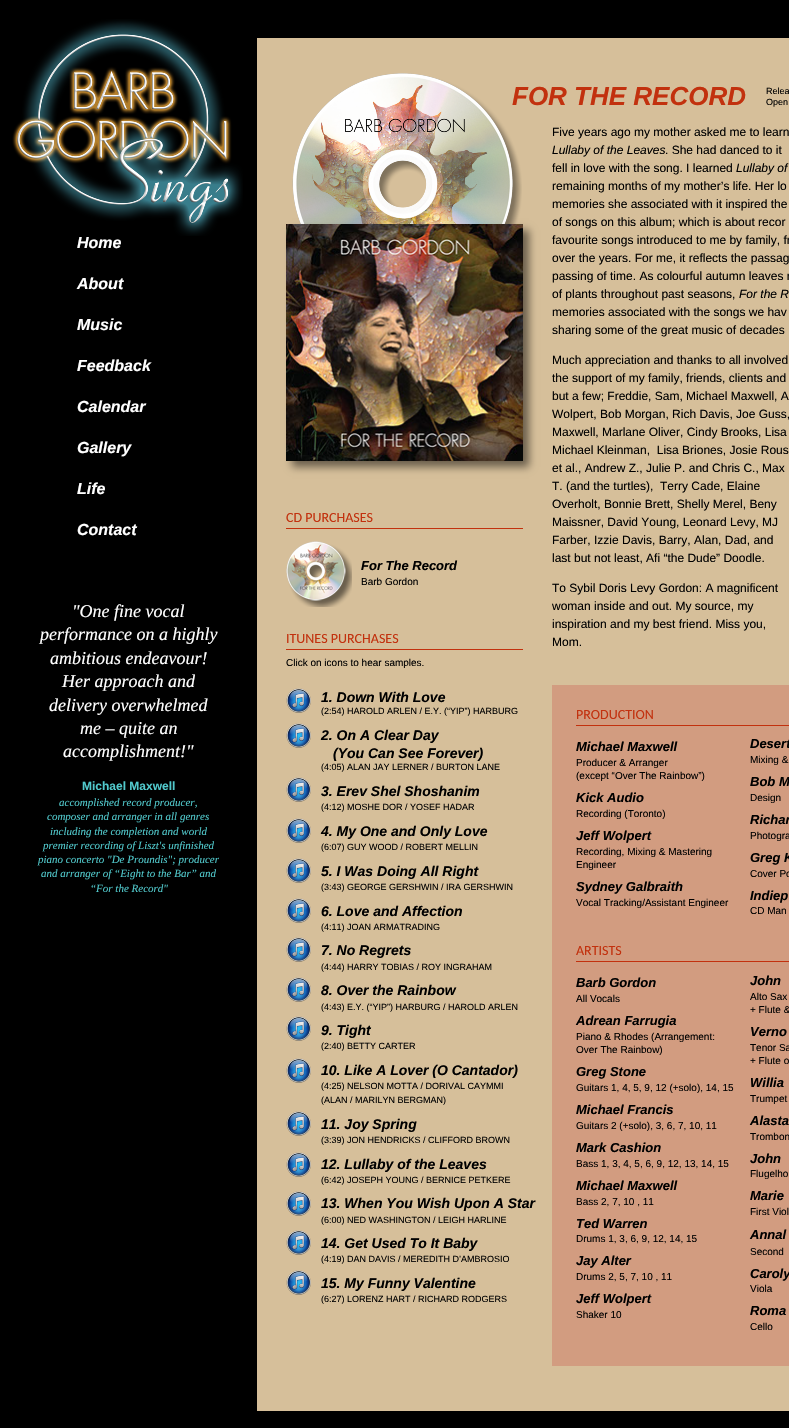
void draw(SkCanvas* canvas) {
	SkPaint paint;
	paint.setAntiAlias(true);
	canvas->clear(0xff000000);
	canvas->drawImageRect(SkImages::DeferredFromEncodedData(SkData::MakeFromFileName("img1.png")), SkRect::MakeXYWH(12, 19, 231, 217), SkSamplingOptions());
	SkFont f1(fontMgr->matchFamilyStyle("Liberation Sans", SkFontStyle::BoldItalic()), 16);
	f1.setSubpixel(true);
	paint.setColor(0xffffffff);
	canvas->drawString("Home", 77, 248, f1, paint);
	canvas->drawString("About", 77, 289, f1, paint);
	canvas->drawString("Music", 77, 330, f1, paint);
	canvas->drawString("Feedback", 77, 371, f1, paint);
	canvas->drawString("Calendar", 77, 412, f1, paint);
	canvas->drawString("Gallery", 77, 453, f1, paint);
	canvas->drawString("Life", 77, 494, f1, paint);
	canvas->drawString("Contact", 77, 535, f1, paint);
	SkFont f2(fontMgr->matchFamilyStyle("Liberation Serif", SkFontStyle::Italic()), 18);
	f2.setSubpixel(true);
	canvas->drawString("\"One fine vocal", 72, 617, f2, paint);
	canvas->drawString("performance on a highly", 40, 640, f2, paint);
	canvas->drawString("ambitious endeavour!", 50, 664, f2, paint);
	canvas->drawString("Her approach and", 62, 687, f2, paint);
	canvas->drawString("delivery overwhelmed", 49, 711, f2, paint);
	canvas->drawString("me – quite an", 80, 734, f2, paint);
	canvas->drawString("accomplishment!\"", 63, 757, f2, paint);
	SkFont f3(fontMgr->matchFamilyStyle("Liberation Sans", SkFontStyle::Bold()), 12);
	f3.setSubpixel(true);
	paint.setColor(0xff51c9cc);
	canvas->drawString("Michael Maxwell", 82, 790, f3, paint);
	SkFont f4(fontMgr->matchFamilyStyle("Liberation Serif", SkFontStyle::Italic()), 11);
	f4.setSubpixel(true);
	canvas->drawString("accomplished record producer,", 59, 806, f4, paint);
	canvas->drawString("composer and arranger in all genres", 47, 820, f4, paint);
	canvas->drawString("including the completion and world", 50, 835, f4, paint);
	canvas->drawString("premier recording of Liszt's unfinished", 43, 849, f4, paint);
	canvas->drawString("piano concerto \"De Proundis\"; producer", 38, 863, f4, paint);
	canvas->drawString("and arranger of “Eight to the Bar” and", 41, 877, f4, paint);
	canvas->drawString("“For the Record\"", 90, 892, f4, paint);
	paint.setColor(0xffd6bf9a);
	canvas->drawRect(SkRect::MakeXYWH(257, 38, 532, 1373), paint);
	SkFont f5(fontMgr->matchFamilyStyle("Liberation Sans", SkFontStyle::BoldItalic()), 26);
	f5.setSubpixel(true);
	paint.setColor(0xffc2310e);
	canvas->drawString("FOR THE RECORD", 512, 105, f5, paint);
	canvas->drawImageRect(SkImages::DeferredFromEncodedData(SkData::MakeFromFileName("img2.png")), SkRect::MakeXYWH(292, 73, 230, 151), SkSamplingOptions());
	paint.setColor(0x80000000);
	paint.setMaskFilter(SkMaskFilter::MakeBlur(kNormal_SkBlurStyle, 4));
	canvas->drawRect(SkRect::MakeXYWH(292, 230, 237, 237), paint);
	paint.setMaskFilter(nullptr);
	canvas->drawImageRect(SkImages::DeferredFromEncodedData(SkData::MakeFromFileName("img3.png")), SkRect::MakeXYWH(286, 224, 237, 237), SkSamplingOptions());
	SkFont f6(fontMgr->matchFamilyStyle("Liberation Sans", SkFontStyle::Normal()), 9);
	f6.setSubpixel(true);
	paint.setColor(0xff000000);
	canvas->drawString("Relea", 766, 94, f6, paint);
	canvas->drawString("Open", 766, 105, f6, paint);
	SkFont f7(fontMgr->matchFamilyStyle("Carlito", SkFontStyle::Normal()), 14);
	f7.setSubpixel(true);
	paint.setColor(0xffc2310e);
	canvas->drawString("CD PURCHASES", 286, 522, f7, paint);
	canvas->drawRect(SkRect::MakeXYWH(286, 528, 237, 1), paint);
	SkFont f8(fontMgr->matchFamilyStyle("Liberation Sans", SkFontStyle::Normal()), 12);
	f8.setSubpixel(true);
	paint.setColor(0xff000000);
	canvas->drawString("Five years ago my mother asked me to learn", 552, 136, f8, paint);
	SkFont f9(fontMgr->matchFamilyStyle("Liberation Sans", SkFontStyle::Italic()), 12);
	f9.setSubpixel(true);
	canvas->drawString("Lullaby of the Leaves", 552, 154, f9, paint);
	canvas->drawString(". She had danced to it", 665, 154, f8, paint);
	canvas->drawString("fell in love with the song. I learned", 552, 172, f8, paint);
	canvas->drawString("Lullaby of", 736, 172, f9, paint);
	canvas->drawString("remaining months of my mother’s life. Her lo", 552, 190, f8, paint);
	canvas->drawString("memories she associated with it inspired the", 552, 208, f8, paint);
	canvas->drawString("of songs on this album; which is about recor", 552, 226, f8, paint);
	canvas->drawString("favourite songs introduced to me by family, fr", 552, 244, f8, paint);
	canvas->drawString("over the years. For me, it reflects the passag", 552, 262, f8, paint);
	canvas->drawString("passing of time. As colourful autumn leaves r", 552, 280, f8, paint);
	canvas->drawString("of plants throughout past seasons,", 552, 298, f8, paint);
	canvas->drawString("For the R", 739, 298, f9, paint);
	canvas->drawString("memories associated with the songs we hav", 552, 316, f8, paint);
	canvas->drawString("sharing some of the great music of decades", 552, 334, f8, paint);
	canvas->drawString("Much appreciation and thanks to all involved", 552, 364, f8, paint);
	canvas->drawString("the support of my family, friends, clients and", 552, 382, f8, paint);
	canvas->drawString("but a few; Freddie, Sam, Michael Maxwell, A", 552, 400, f8, paint);
	canvas->drawString("Wolpert, Bob Morgan, Rich Davis, Joe Guss,", 552, 418, f8, paint);
	canvas->drawString("Maxwell, Marlane Oliver, Cindy Brooks, Lisa", 552, 436, f8, paint);
	canvas->drawString("Michael Kleinman,  Lisa Briones, Josie Rous", 552, 454, f8, paint);
	canvas->drawString("et al., Andrew Z., Julie P. and Chris C., Max", 552, 472, f8, paint);
	canvas->drawString("T. (and the turtles),  Terry Cade, Elaine", 552, 490, f8, paint);
	canvas->drawString("Overholt, Bonnie Brett, Shelly Merel, Beny", 552, 508, f8, paint);
	canvas->drawString("Maissner, David Young, Leonard Levy, MJ", 552, 526, f8, paint);
	canvas->drawString("Farber, Izzie Davis, Barry, Alan, Dad, and", 552, 544, f8, paint);
	canvas->drawString("last but not least, Afi “the Dude” Doodle.", 552, 562, f8, paint);
	canvas->drawString("To Sybil Doris Levy Gordon: A magnificent", 552, 592, f8, paint);
	canvas->drawString("woman inside and out. My source, my", 552, 610, f8, paint);
	canvas->drawString("inspiration and my best friend. Miss you,", 552, 628, f8, paint);
	canvas->drawString("Mom.", 552, 646, f8, paint);
	canvas->drawImageRect(SkImages::DeferredFromEncodedData(SkData::MakeFromFileName("img4.png")), SkRect::MakeXYWH(286, 541, 66, 66), SkSamplingOptions());
	SkFont f10(fontMgr->matchFamilyStyle("Liberation Sans", SkFontStyle::BoldItalic()), 13);
	f10.setSubpixel(true);
	canvas->drawString("For The Record", 361, 570, f10, paint);
	SkFont f11(fontMgr->matchFamilyStyle("Liberation Sans", SkFontStyle::Normal()), 10);
	f11.setSubpixel(true);
	canvas->drawString("Barb Gordon", 361, 585, f11, paint);
	paint.setColor(0xffc2310e);
	canvas->drawString("ITUNES PURCHASES", 286, 643, f7, paint);
	canvas->drawRect(SkRect::MakeXYWH(286, 649, 237, 1), paint);
	paint.setColor(0xff000000);
	canvas->drawString("Click on icons to hear samples.", 286, 666, f11, paint);
	canvas->drawImageRect(SkImages::DeferredFromEncodedData(SkData::MakeFromFileName("img5.png")), SkRect::MakeXYWH(286, 688, 25, 25), SkSamplingOptions());
	canvas->drawImageRect(SkImages::DeferredFromEncodedData(SkData::MakeFromFileName("img5.png")), SkRect::MakeXYWH(286, 723, 25, 25), SkSamplingOptions());
	canvas->drawImageRect(SkImages::DeferredFromEncodedData(SkData::MakeFromFileName("img5.png")), SkRect::MakeXYWH(286, 777, 25, 25), SkSamplingOptions());
	canvas->drawImageRect(SkImages::DeferredFromEncodedData(SkData::MakeFromFileName("img5.png")), SkRect::MakeXYWH(286, 818, 25, 25), SkSamplingOptions());
	canvas->drawImageRect(SkImages::DeferredFromEncodedData(SkData::MakeFromFileName("img5.png")), SkRect::MakeXYWH(286, 858, 25, 25), SkSamplingOptions());
	canvas->drawImageRect(SkImages::DeferredFromEncodedData(SkData::MakeFromFileName("img5.png")), SkRect::MakeXYWH(286, 898, 25, 25), SkSamplingOptions());
	canvas->drawImageRect(SkImages::DeferredFromEncodedData(SkData::MakeFromFileName("img5.png")), SkRect::MakeXYWH(286, 937, 25, 25), SkSamplingOptions());
	canvas->drawImageRect(SkImages::DeferredFromEncodedData(SkData::MakeFromFileName("img5.png")), SkRect::MakeXYWH(286, 977, 25, 25), SkSamplingOptions());
	canvas->drawImageRect(SkImages::DeferredFromEncodedData(SkData::MakeFromFileName("img5.png")), SkRect::MakeXYWH(286, 1016, 25, 25), SkSamplingOptions());
	canvas->drawImageRect(SkImages::DeferredFromEncodedData(SkData::MakeFromFileName("img5.png")), SkRect::MakeXYWH(286, 1058, 25, 25), SkSamplingOptions());
	canvas->drawImageRect(SkImages::DeferredFromEncodedData(SkData::MakeFromFileName("img5.png")), SkRect::MakeXYWH(286, 1111, 25, 25), SkSamplingOptions());
	canvas->drawImageRect(SkImages::DeferredFromEncodedData(SkData::MakeFromFileName("img5.png")), SkRect::MakeXYWH(286, 1152, 25, 25), SkSamplingOptions());
	canvas->drawImageRect(SkImages::DeferredFromEncodedData(SkData::MakeFromFileName("img5.png")), SkRect::MakeXYWH(286, 1191, 25, 25), SkSamplingOptions());
	canvas->drawImageRect(SkImages::DeferredFromEncodedData(SkData::MakeFromFileName("img5.png")), SkRect::MakeXYWH(286, 1230, 25, 25), SkSamplingOptions());
	canvas->drawImageRect(SkImages::DeferredFromEncodedData(SkData::MakeFromFileName("img5.png")), SkRect::MakeXYWH(286, 1270, 25, 25), SkSamplingOptions());
	SkFont f12(fontMgr->matchFamilyStyle("Liberation Sans", SkFontStyle::BoldItalic()), 14);
	f12.setSubpixel(true);
	canvas->drawString("1. Down With Love", 321, 702, f12, paint);
	canvas->drawString("(2:54) HAROLD ARLEN / E.Y. (“YIP”) HARBURG", 321, 714, f6, paint);
	canvas->drawString("2. On A Clear Day", 321, 740, f12, paint);
	canvas->drawString("(You Can See Forever)", 333, 758, f12, paint);
	canvas->drawString("(4:05) ALAN JAY LERNER / BURTON LANE", 321, 770, f6, paint);
	canvas->drawString("3. Erev Shel Shoshanim", 321, 796, f12, paint);
	canvas->drawString("(4:12) MOSHE DOR / YOSEF HADAR", 321, 810, f6, paint);
	canvas->drawString("4. My One and Only Love", 321, 836, f12, paint);
	canvas->drawString("(6:07) GUY WOOD / ROBERT MELLIN", 321, 850, f6, paint);
	canvas->drawString("5. I Was Doing All Right", 321, 876, f12, paint);
	canvas->drawString("(3:43) GEORGE GERSHWIN / IRA GERSHWIN", 321, 890, f6, paint);
	canvas->drawString("6. Love and Affection", 321, 916, f12, paint);
	canvas->drawString("(4:11) JOAN ARMATRADING", 321, 930, f6, paint);
	canvas->drawString("7. No Regrets", 321, 955, f12, paint);
	canvas->drawString("(4:44) HARRY TOBIAS / ROY INGRAHAM", 321, 970, f6, paint);
	canvas->drawString("8. Over the Rainbow", 321, 995, f12, paint);
	canvas->drawString("(4:43) E.Y. (“YIP”) HARBURG / HAROLD ARLEN", 321, 1010, f6, paint);
	canvas->drawString("9. Tight", 321, 1035, f12, paint);
	canvas->drawString("(2:40) BETTY CARTER", 321, 1049, f6, paint);
	canvas->drawString("10. Like A Lover (O Cantador)", 321, 1075, f12, paint);
	canvas->drawString("(4:25) NELSON MOTTA / DORIVAL CAYMMI", 321, 1089, f6, paint);
	canvas->drawString("(ALAN / MARILYN BERGMAN)", 321, 1103, f6, paint);
	canvas->drawString("11. Joy Spring", 321, 1129, f12, paint);
	canvas->drawString("(3:39) JON HENDRICKS / CLIFFORD BROWN", 321, 1143, f6, paint);
	canvas->drawString("12. Lullaby of the Leaves", 321, 1169, f12, paint);
	canvas->drawString("(6:42) JOSEPH YOUNG / BERNICE PETKERE", 321, 1183, f6, paint);
	canvas->drawString("13. When You Wish Upon A Star", 321, 1208, f12, paint);
	canvas->drawString("(6:00) NED WASHINGTON / LEIGH HARLINE", 321, 1223, f6, paint);
	canvas->drawString("14. Get Used To It Baby", 321, 1248, f12, paint);
	canvas->drawString("(4:19) DAN DAVIS / MEREDITH D’AMBROSIO", 321, 1262, f6, paint);
	canvas->drawString("15. My Funny Valentine", 321, 1288, f12, paint);
	canvas->drawString("(6:27) LORENZ HART / RICHARD RODGERS", 321, 1302, f6, paint);
	paint.setColor(0xffd29c80);
	canvas->drawRect(SkRect::MakeXYWH(552, 685, 237, 681), paint);
	paint.setColor(0xffc2310e);
	canvas->drawString("PRODUCTION", 576, 719, f7, paint);
	paint.setColor(0xff000000);
	canvas->drawString("Michael Maxwell", 576, 751, f10, paint);
	canvas->drawString("Producer & Arranger", 576, 766, f11, paint);
	canvas->drawString("(except “Over The Rainbow”)", 576, 779, f11, paint);
	canvas->drawString("Kick Audio", 576, 802, f10, paint);
	canvas->drawString("Recording (Toronto)", 576, 817, f11, paint);
	canvas->drawString("Jeff Wolpert", 576, 840, f10, paint);
	canvas->drawString("Recording, Mixing & Mastering", 576, 855, f11, paint);
	canvas->drawString("Engineer", 576, 868, f11, paint);
	canvas->drawString("Sydney Galbraith", 576, 891, f10, paint);
	canvas->drawString("Vocal Tracking/Assistant Engineer", 576, 906, f11, paint);
	paint.setColor(0xffc2310e);
	canvas->drawRect(SkRect::MakeXYWH(576, 725, 213, 1), paint);
	paint.setColor(0xff000000);
	canvas->drawString("Desert", 750, 748, f10, paint);
	canvas->drawString("Mixing &", 750, 763, f11, paint);
	canvas->drawString("Bob M", 750, 786, f10, paint);
	canvas->drawString("Design", 750, 801, f11, paint);
	canvas->drawString("Richar", 750, 824, f10, paint);
	canvas->drawString("Photogra", 750, 839, f11, paint);
	canvas->drawString("Greg K", 750, 862, f10, paint);
	canvas->drawString("Cover Po", 750, 877, f11, paint);
	canvas->drawString("Indiep", 750, 900, f10, paint);
	canvas->drawString("CD Man", 750, 914, f11, paint);
	paint.setColor(0xffc2310e);
	canvas->drawString("ARTISTS", 576, 955, f7, paint);
	paint.setColor(0xff000000);
	canvas->drawString("Barb Gordon", 576, 987, f10, paint);
	canvas->drawString("All Vocals", 576, 1002, f11, paint);
	canvas->drawString("Adrean Farrugia", 576, 1025, f10, paint);
	canvas->drawString("Piano & Rhodes (Arrangement:", 576, 1040, f11, paint);
	canvas->drawString("Over The Rainbow)", 576, 1053, f11, paint);
	canvas->drawString("Greg Stone", 576, 1076, f10, paint);
	canvas->drawString("Guitars 1, 4, 5, 9, 12 (+solo), 14, 15", 576, 1091, f11, paint);
	canvas->drawString("Michael Francis", 576, 1114, f10, paint);
	canvas->drawString("Guitars 2 (+solo), 3, 6, 7, 10, 11", 576, 1129, f11, paint);
	canvas->drawString("Mark Cashion", 576, 1152, f10, paint);
	canvas->drawString("Bass 1, 3, 4, 5, 6, 9, 12, 13, 14, 15", 576, 1167, f11, paint);
	canvas->drawString("Michael Maxwell", 576, 1190, f10, paint);
	canvas->drawString("Bass 2, 7, 10 , 11", 576, 1205, f11, paint);
	canvas->drawString("Ted Warren", 576, 1228, f10, paint);
	canvas->drawString("Drums 1, 3, 6, 9, 12, 14, 15", 576, 1242, f11, paint);
	canvas->drawString("Jay Alter", 576, 1265, f10, paint);
	canvas->drawString("Drums 2, 5, 7, 10 , 11", 576, 1280, f11, paint);
	canvas->drawString("Jeff Wolpert", 576, 1303, f10, paint);
	canvas->drawString("Shaker 10", 576, 1318, f11, paint);
	paint.setColor(0xffc2310e);
	canvas->drawRect(SkRect::MakeXYWH(576, 961, 213, 1), paint);
	paint.setColor(0xff000000);
	canvas->drawString("John", 750, 985, f10, paint);
	canvas->drawString("Alto Sax", 750, 1000, f11, paint);
	canvas->drawString("+ Flute &", 750, 1013, f11, paint);
	canvas->drawString("Verno", 750, 1036, f10, paint);
	canvas->drawString("Tenor Sa", 750, 1051, f11, paint);
	canvas->drawString("+ Flute o", 750, 1064, f11, paint);
	canvas->drawString("Willia", 750, 1087, f10, paint);
	canvas->drawString("Trumpet", 750, 1102, f11, paint);
	canvas->drawString("Alasta", 750, 1125, f10, paint);
	canvas->drawString("Trombon", 750, 1140, f11, paint);
	canvas->drawString("John", 750, 1163, f10, paint);
	canvas->drawString("Flugelho", 750, 1177, f11, paint);
	canvas->drawString("Marie", 750, 1200, f10, paint);
	canvas->drawString("First Viol", 750, 1215, f11, paint);
	canvas->drawString("Annal", 750, 1239, f10, paint);
	canvas->drawString("Second", 750, 1255, f11, paint);
	canvas->drawString("Caroly", 750, 1278, f10, paint);
	canvas->drawString("Viola", 750, 1292, f11, paint);
	canvas->drawString("Roma", 750, 1315, f10, paint);
	canvas->drawString("Cello", 750, 1330, f11, paint);
}
